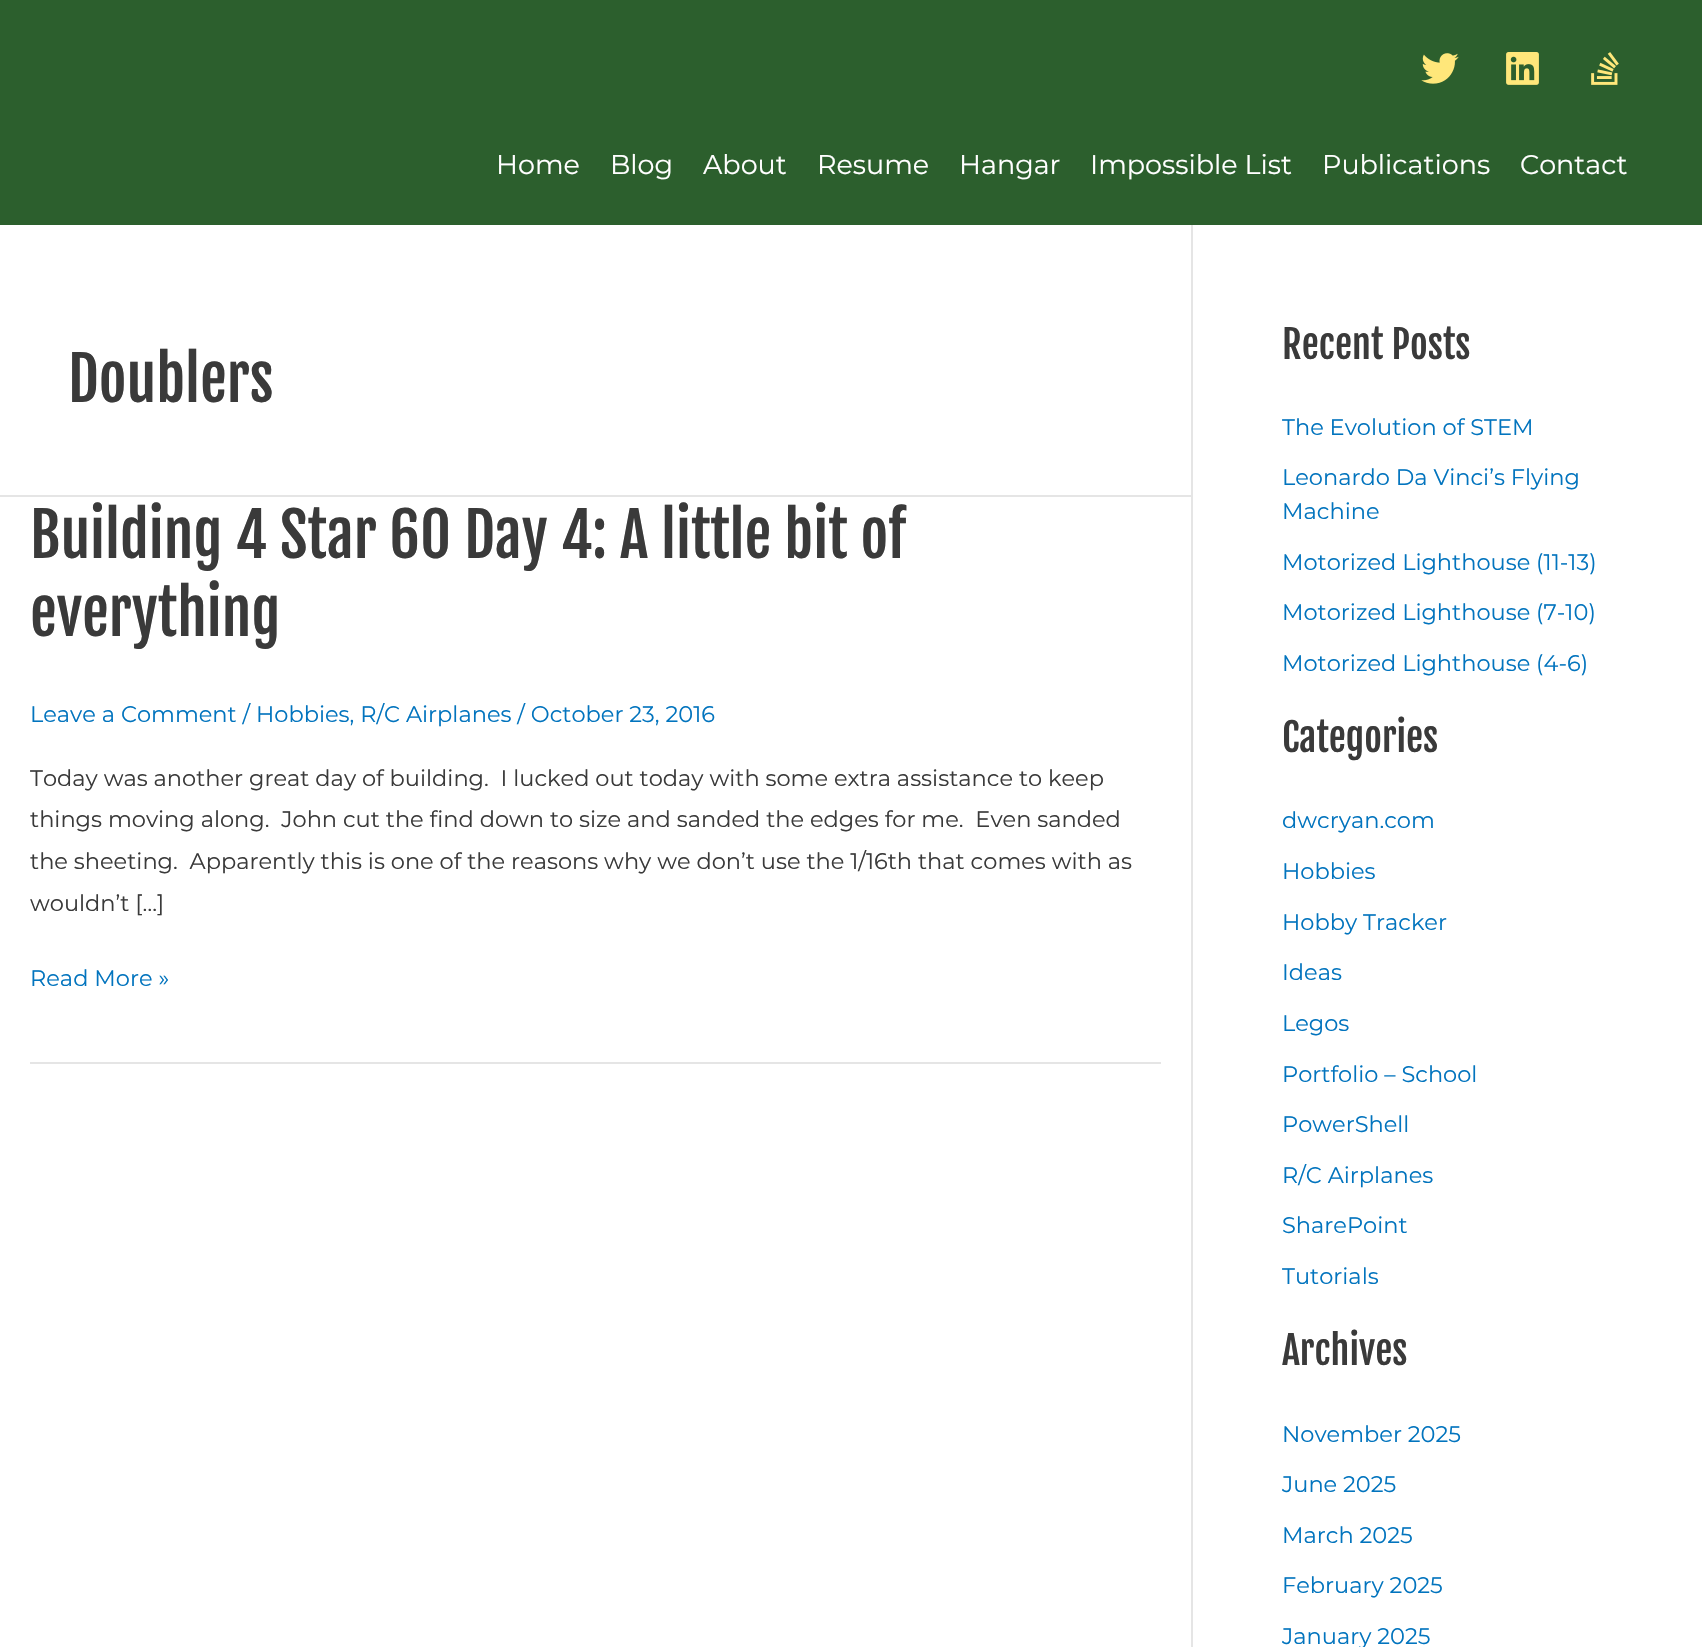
void draw(SkCanvas* canvas) {
	SkPaint paint;
	paint.setAntiAlias(true);
	canvas->clear(0xffffffff);
	paint.setColor(0xff2c5f2d);
	canvas->drawRect(SkRect::MakeXYWH(0, 0, 1702, 225), paint);
	canvas->drawImageRect(SkImages::DeferredFromEncodedData(SkData::MakeFromFileName("img1.png")), SkRect::MakeXYWH(1421, 53, 38, 31), SkSamplingOptions());
	canvas->drawImageRect(SkImages::DeferredFromEncodedData(SkData::MakeFromFileName("img2.png")), SkRect::MakeXYWH(1506, 52, 33, 33), SkSamplingOptions());
	canvas->drawImageRect(SkImages::DeferredFromEncodedData(SkData::MakeFromFileName("img3.png")), SkRect::MakeXYWH(1591, 52, 28, 33), SkSamplingOptions());
	SkFont f1(fontMgr->matchFamilyStyle("Montserrat", SkFontStyle(100, SkFontStyle::kNormal_Width, SkFontStyle::kUpright_Slant)), 27);
	f1.setSubpixel(true);
	paint.setColor(0xffffffff);
	canvas->drawString("Home", 496, 174, f1, paint);
	canvas->drawString("Blog", 610, 174, f1, paint);
	canvas->drawString("About", 703, 174, f1, paint);
	canvas->drawString("Resume", 817, 174, f1, paint);
	canvas->drawString("Hangar", 959, 174, f1, paint);
	canvas->drawString("Impossible List", 1090, 174, f1, paint);
	canvas->drawString("Publications", 1322, 174, f1, paint);
	canvas->drawString("Contact", 1520, 174, f1, paint);
	paint.setColor(0xffe5e5e5);
	canvas->drawRect(SkRect::MakeXYWH(1191, 225, 2, 1422), paint);
	canvas->drawRect(SkRect::MakeXYWH(0, 495, 1191, 2), paint);
	SkFont f2(fontMgr->matchFamilyStyle("Fjalla One", SkFontStyle::Normal()), 60);
	f2.setSubpixel(true);
	paint.setColor(0xff3a3a3a);
	canvas->drawString("Doublers", 68, 402, f2, paint);
	paint.setColor(0xffe5e5e5);
	canvas->drawRect(SkRect::MakeXYWH(30, 1062, 1131, 2), paint);
	paint.setColor(0xff3a3a3a);
	canvas->drawString("Building 4 Star 60 Day 4: A little bit of", 30, 558, f2, paint);
	canvas->drawString("everything", 30, 636, f2, paint);
	SkFont f3(fontMgr->matchFamilyStyle("Montserrat", SkFontStyle(100, SkFontStyle::kNormal_Width, SkFontStyle::kUpright_Slant)), 22.5);
	f3.setSubpixel(true);
	paint.setColor(0xff0274be);
	canvas->drawString("Leave a Comment / Hobbies, R/C Airplanes / October 23, 2016", 30, 722, f3, paint);
	paint.setColor(0xff3a3a3a);
	canvas->drawString("Today was another great day of building.  I lucked out today with some extra assistance to keep", 30, 786, f3, paint);
	canvas->drawString("things moving along.  John cut the find down to size and sanded the edges for me.  Even sanded", 30, 827, f3, paint);
	canvas->drawString("the sheeting.  Apparently this is one of the reasons why we don’t use the 1/16th that comes with as", 30, 869, f3, paint);
	canvas->drawString("wouldn’t […]", 30, 911, f3, paint);
	paint.setColor(0xff0274be);
	canvas->drawString("Read More »", 30, 986, f3, paint);
	SkFont f4(fontMgr->matchFamilyStyle("Fjalla One", SkFontStyle::Normal()), 38.25);
	f4.setSubpixel(true);
	paint.setColor(0xff3a3a3a);
	canvas->drawString("Recent Posts", 1282, 359, f4, paint);
	paint.setColor(0xff0274be);
	canvas->drawString("The Evolution of STEM", 1282, 435, f3, paint);
	canvas->drawString("Leonardo Da Vinci’s Flying", 1282, 485, f3, paint);
	canvas->drawString("Machine", 1282, 519, f3, paint);
	canvas->drawString("Motorized Lighthouse (11-13)", 1282, 570, f3, paint);
	canvas->drawString("Motorized Lighthouse (7-10)", 1282, 620, f3, paint);
	canvas->drawString("Motorized Lighthouse (4-6)", 1282, 671, f3, paint);
	paint.setColor(0xff3a3a3a);
	canvas->drawString("Categories", 1282, 752, f4, paint);
	paint.setColor(0xff0274be);
	canvas->drawString("dwcryan.com", 1282, 828, f3, paint);
	canvas->drawString("Hobbies", 1282, 879, f3, paint);
	canvas->drawString("Hobby Tracker", 1282, 930, f3, paint);
	canvas->drawString("Ideas", 1282, 980, f3, paint);
	canvas->drawString("Legos", 1282, 1031, f3, paint);
	canvas->drawString("Portfolio – School", 1282, 1082, f3, paint);
	canvas->drawString("PowerShell", 1282, 1132, f3, paint);
	canvas->drawString("R/C Airplanes", 1282, 1183, f3, paint);
	canvas->drawString("SharePoint", 1282, 1233, f3, paint);
	canvas->drawString("Tutorials", 1282, 1284, f3, paint);
	paint.setColor(0xff3a3a3a);
	canvas->drawString("Archives", 1282, 1365, f4, paint);
	paint.setColor(0xff0274be);
	canvas->drawString("November 2025", 1282, 1442, f3, paint);
	canvas->drawString("June 2025", 1282, 1492, f3, paint);
	canvas->drawString("March 2025", 1282, 1543, f3, paint);
	canvas->drawString("February 2025", 1282, 1593, f3, paint);
	canvas->drawString("January 2025", 1282, 1644, f3, paint);
}
